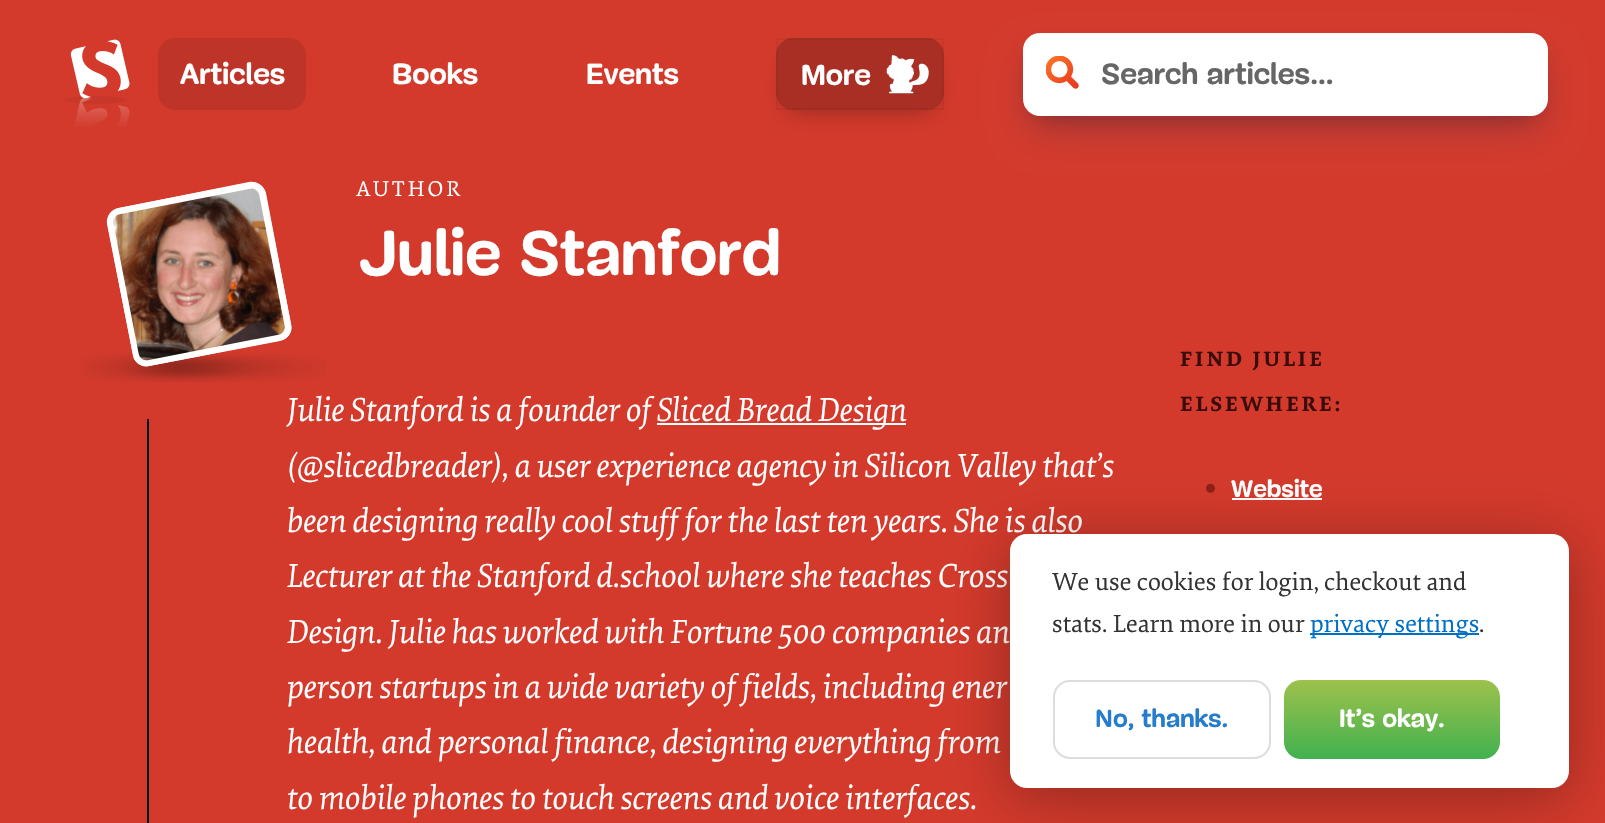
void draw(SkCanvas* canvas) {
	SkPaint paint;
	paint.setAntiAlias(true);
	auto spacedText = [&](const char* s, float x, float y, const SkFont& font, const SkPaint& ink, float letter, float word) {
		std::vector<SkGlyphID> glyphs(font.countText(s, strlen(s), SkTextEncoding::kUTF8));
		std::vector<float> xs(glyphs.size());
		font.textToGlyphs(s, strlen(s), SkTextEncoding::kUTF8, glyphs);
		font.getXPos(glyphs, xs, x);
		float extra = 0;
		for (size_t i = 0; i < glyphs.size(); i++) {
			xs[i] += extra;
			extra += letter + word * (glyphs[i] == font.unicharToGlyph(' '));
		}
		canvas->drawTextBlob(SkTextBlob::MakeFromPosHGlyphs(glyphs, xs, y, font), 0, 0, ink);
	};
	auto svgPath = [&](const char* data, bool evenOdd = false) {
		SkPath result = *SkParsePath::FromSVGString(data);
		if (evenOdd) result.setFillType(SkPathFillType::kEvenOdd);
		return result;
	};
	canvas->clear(0xffd33a2c);
	canvas->drawImageRect(SkImages::DeferredFromEncodedData(SkData::MakeFromFileName("img1.png")), SkRect::MakeXYWH(65, 39, 65, 88), SkSamplingOptions());
	paint.setColor(0xffbe3428);
	canvas->drawRoundRect(SkRect::MakeXYWH(158, 38, 148, 72), 17, 17, paint);
	SkFont f1(fontMgr->matchFamilyStyle("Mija", SkFontStyle::Bold()), 30);
	f1.setSubpixel(true);
	paint.setColor(0xffffffff);
	canvas->drawString("Articles", 180, 84, f1, paint);
	canvas->drawString("Books", 392, 84, f1, paint);
	canvas->drawString("Events", 586, 84, f1, paint);
	canvas->save();
	canvas->clipPath(svgPath("M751 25H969V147H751ZM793 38H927C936.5 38 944 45.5 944 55V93C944 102.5 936.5 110 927 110H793C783.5 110 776 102.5 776 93V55C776 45.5 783.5 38 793 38Z", true), true);
	paint.setColor(0x4d000000);
	paint.setMaskFilter(SkMaskFilter::MakeBlur(kNormal_SkBlurStyle, 12));
	canvas->drawRoundRect(SkRect::MakeXYWH(788, 62, 144, 48), 5, 5, paint);
	paint.setMaskFilter(nullptr);
	canvas->restore();
	paint.setColor(0x33000000);
	canvas->drawRoundRect(SkRect::MakeXYWH(776, 38, 168, 72), 17, 17, paint);
	paint.setStroke(true);
	paint.setStrokeWidth(2);
	paint.setColor(0x0d000000);
	canvas->drawRect(SkRect::MakeXYWH(777, 39, 166, 70), paint);
	paint.setStroke(false);
	paint.setColor(0xffffffff);
	canvas->drawString("More", 801, 85, f1, paint);
	canvas->drawImageRect(SkImages::DeferredFromEncodedData(SkData::MakeFromFileName("img2.png")), SkRect::MakeXYWH(886, 55, 43, 39), SkSamplingOptions());
	paint.setColor(0x4d000000);
	paint.setMaskFilter(SkMaskFilter::MakeBlur(kNormal_SkBlurStyle, 12));
	canvas->drawRoundRect(SkRect::MakeXYWH(1035, 57, 501, 59), 5, 5, paint);
	paint.setMaskFilter(nullptr);
	paint.setColor(0x4032325d);
	paint.setMaskFilter(SkMaskFilter::MakeBlur(kNormal_SkBlurStyle, 20));
	canvas->drawRoundRect(SkRect::MakeXYWH(1031, 60, 510, 68), 9, 9, paint);
	paint.setMaskFilter(nullptr);
	paint.setColor(0xffffffff);
	canvas->drawRoundRect(SkRect::MakeXYWH(1023, 33, 525, 83), 17, 17, paint);
	canvas->drawImageRect(SkImages::DeferredFromEncodedData(SkData::MakeFromFileName("img3.png")), SkRect::MakeXYWH(1046, 56, 33, 33), SkSamplingOptions());
	SkFont f2(fontMgr->matchFamilyStyle("Mija", SkFontStyle::Bold()), 30.25);
	f2.setSubpixel(true);
	paint.setColor(0xff666666);
	canvas->drawString("Search articles...", 1101, 84, f2, paint);
	canvas->drawImageRect(SkImages::DeferredFromEncodedData(SkData::MakeFromFileName("img5.png")), SkRect::MakeXYWH(81, 352, 245, 31), SkSamplingOptions());
	paint.setColor(0xffffffff);
	canvas->drawPath(svgPath("M119 208L249 182C257 181 264 186 266 193L291 324C293 332 288 339 280 341L149 366C142 368 134 363 133 355L107 224C106 217 111 209 119 208Z"), paint);
	paint.setStroke(true);
	paint.setStrokeWidth(6.3);
	canvas->drawPath(svgPath("M119 211L250 185.5C256 184.5 261.5 188 262.5 194L288 325C289.5 331 285.5 336.5 279.5 337.5L148.5 363C143 364 137 360.5 136 354.5L110.5 223.5C109.5 217.5 113.5 212 119 211Z"), paint);
	canvas->drawImageRect(SkImages::DeferredFromEncodedData(SkData::MakeFromFileName("img4.png")), SkRect::MakeXYWH(113, 188, 172, 173), SkSamplingOptions());
	SkFont f3(fontMgr->matchFamilyStyle("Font", SkFontStyle::Normal()), 22.5);
	f3.setSubpixel(true);
	paint.setStroke(false);
	spacedText("AUTHOR", 357, 196, f3, paint, 3, 0);
	SkFont f4(fontMgr->matchFamilyStyle("Mija", SkFontStyle::Bold()), 64.75);
	f4.setSubpixel(true);
	canvas->drawString("Julie Stanford", 357, 275, f4, paint);
	paint.setColor(0xff000000);
	canvas->drawRect(SkRect::MakeXYWH(147, 419, 2, 404), paint);
	SkFont f5(fontMgr->matchFamilyStyle("Font", SkFontStyle::Italic()), 34.75);
	f5.setSubpixel(true);
	paint.setColor(0xffffffff);
	canvas->drawString("Julie Stanford is a founder of", 287, 421, f5, paint);
	canvas->drawRect(SkRect::MakeXYWH(657, 423, 249, 2), paint);
	canvas->drawString("Sliced Bread Design", 657, 421, f5, paint);
	canvas->drawString("(@slicedbreader), a user experience agency in Silicon Valley that’s", 287, 477, f5, paint);
	canvas->drawString("been designing really cool stuff for the last ten years. She is also", 287, 532, f5, paint);
	canvas->drawString("Lecturer at the Stanford d.school where she teaches Cross", 287, 587, f5, paint);
	canvas->drawString("Design. Julie has worked with Fortune 500 companies an", 287, 643, f5, paint);
	canvas->drawString("person startups in a wide variety of fields, including ener", 287, 698, f5, paint);
	canvas->drawString("health, and personal finance, designing everything from", 287, 753, f5, paint);
	canvas->drawString("to mobile phones to touch screens and voice interfaces.", 287, 809, f5, paint);
	SkFont f6(fontMgr->matchFamilyStyle("Font", SkFontStyle::Bold()), 21.5);
	f6.setSubpixel(true);
	paint.setColor(0xff390c09);
	spacedText("FIND JULIE", 1180, 366, f6, paint, 3, 0);
	spacedText("ELSEWHERE:", 1180, 411, f6, paint, 3, 0);
	canvas->drawImageRect(SkImages::DeferredFromEncodedData(SkData::MakeFromFileName("img6.png")), SkRect::MakeXYWH(1206, 483, 9, 10), SkSamplingOptions());
	SkFont f7(fontMgr->matchFamilyStyle("Mija", SkFontStyle::Bold()), 24.5);
	f7.setSubpixel(true);
	paint.setColor(0xffffffff);
	canvas->drawString("Website", 1231, 497, f7, paint);
	canvas->drawRect(SkRect::MakeXYWH(1232, 498, 90, 2), paint);
	paint.setColor(0x4d000000);
	paint.setMaskFilter(SkMaskFilter::MakeBlur(kNormal_SkBlurStyle, 30));
	canvas->drawRoundRect(SkRect::MakeXYWH(1010, 543, 559, 254), 17, 17, paint);
	paint.setMaskFilter(nullptr);
	paint.setColor(0xffffffff);
	canvas->drawRoundRect(SkRect::MakeXYWH(1010, 534, 559, 254), 17, 17, paint);
	SkFont f8(fontMgr->matchFamilyStyle("Font", SkFontStyle::Normal()), 25.75);
	f8.setSubpixel(true);
	paint.setColor(0xff333333);
	canvas->drawString("We use cookies for login, checkout and", 1052, 590, f8, paint);
	canvas->drawString("stats. Learn more in our", 1052, 632, f8, paint);
	paint.setColor(0xff006fc6);
	canvas->drawRect(SkRect::MakeXYWH(1310, 633, 169, 2), paint);
	canvas->drawString("privacy settings", 1310, 632, f8, paint);
	paint.setColor(0xff333333);
	canvas->drawString(".", 1479, 632, f8, paint);
	paint.setStroke(true);
	paint.setStrokeWidth(2);
	paint.setColor(0xffdddddd);
	canvas->drawRoundRect(SkRect::MakeXYWH(1054, 681, 216, 77), 16, 16, paint);
	SkFont f9(fontMgr->matchFamilyStyle("Mija", SkFontStyle::Bold()), 25.75);
	f9.setSubpixel(true);
	paint.setStroke(false);
	paint.setColor(0xff267dcc);
	canvas->drawString("No, thanks.", 1095, 727, f9, paint);
	{
		const SkColor colors[] = {0xff9ec14c, 0xff41b14f};
		const float stops[] = {0, 1};
		const SkPoint ends[] = {{1392, 680}, {1392, 759}};
		paint.setShader(SkGradientShader::MakeLinear(ends, colors, stops, 2, SkTileMode::kClamp));
		paint.setAlpha(255);
	}
	canvas->drawRoundRect(SkRect::MakeXYWH(1284, 680, 216, 79), 17, 17, paint);
	paint.setShader(nullptr);
	paint.setColor(0xffffffff);
	canvas->drawString("It’s okay.", 1339, 727, f9, paint);
}
